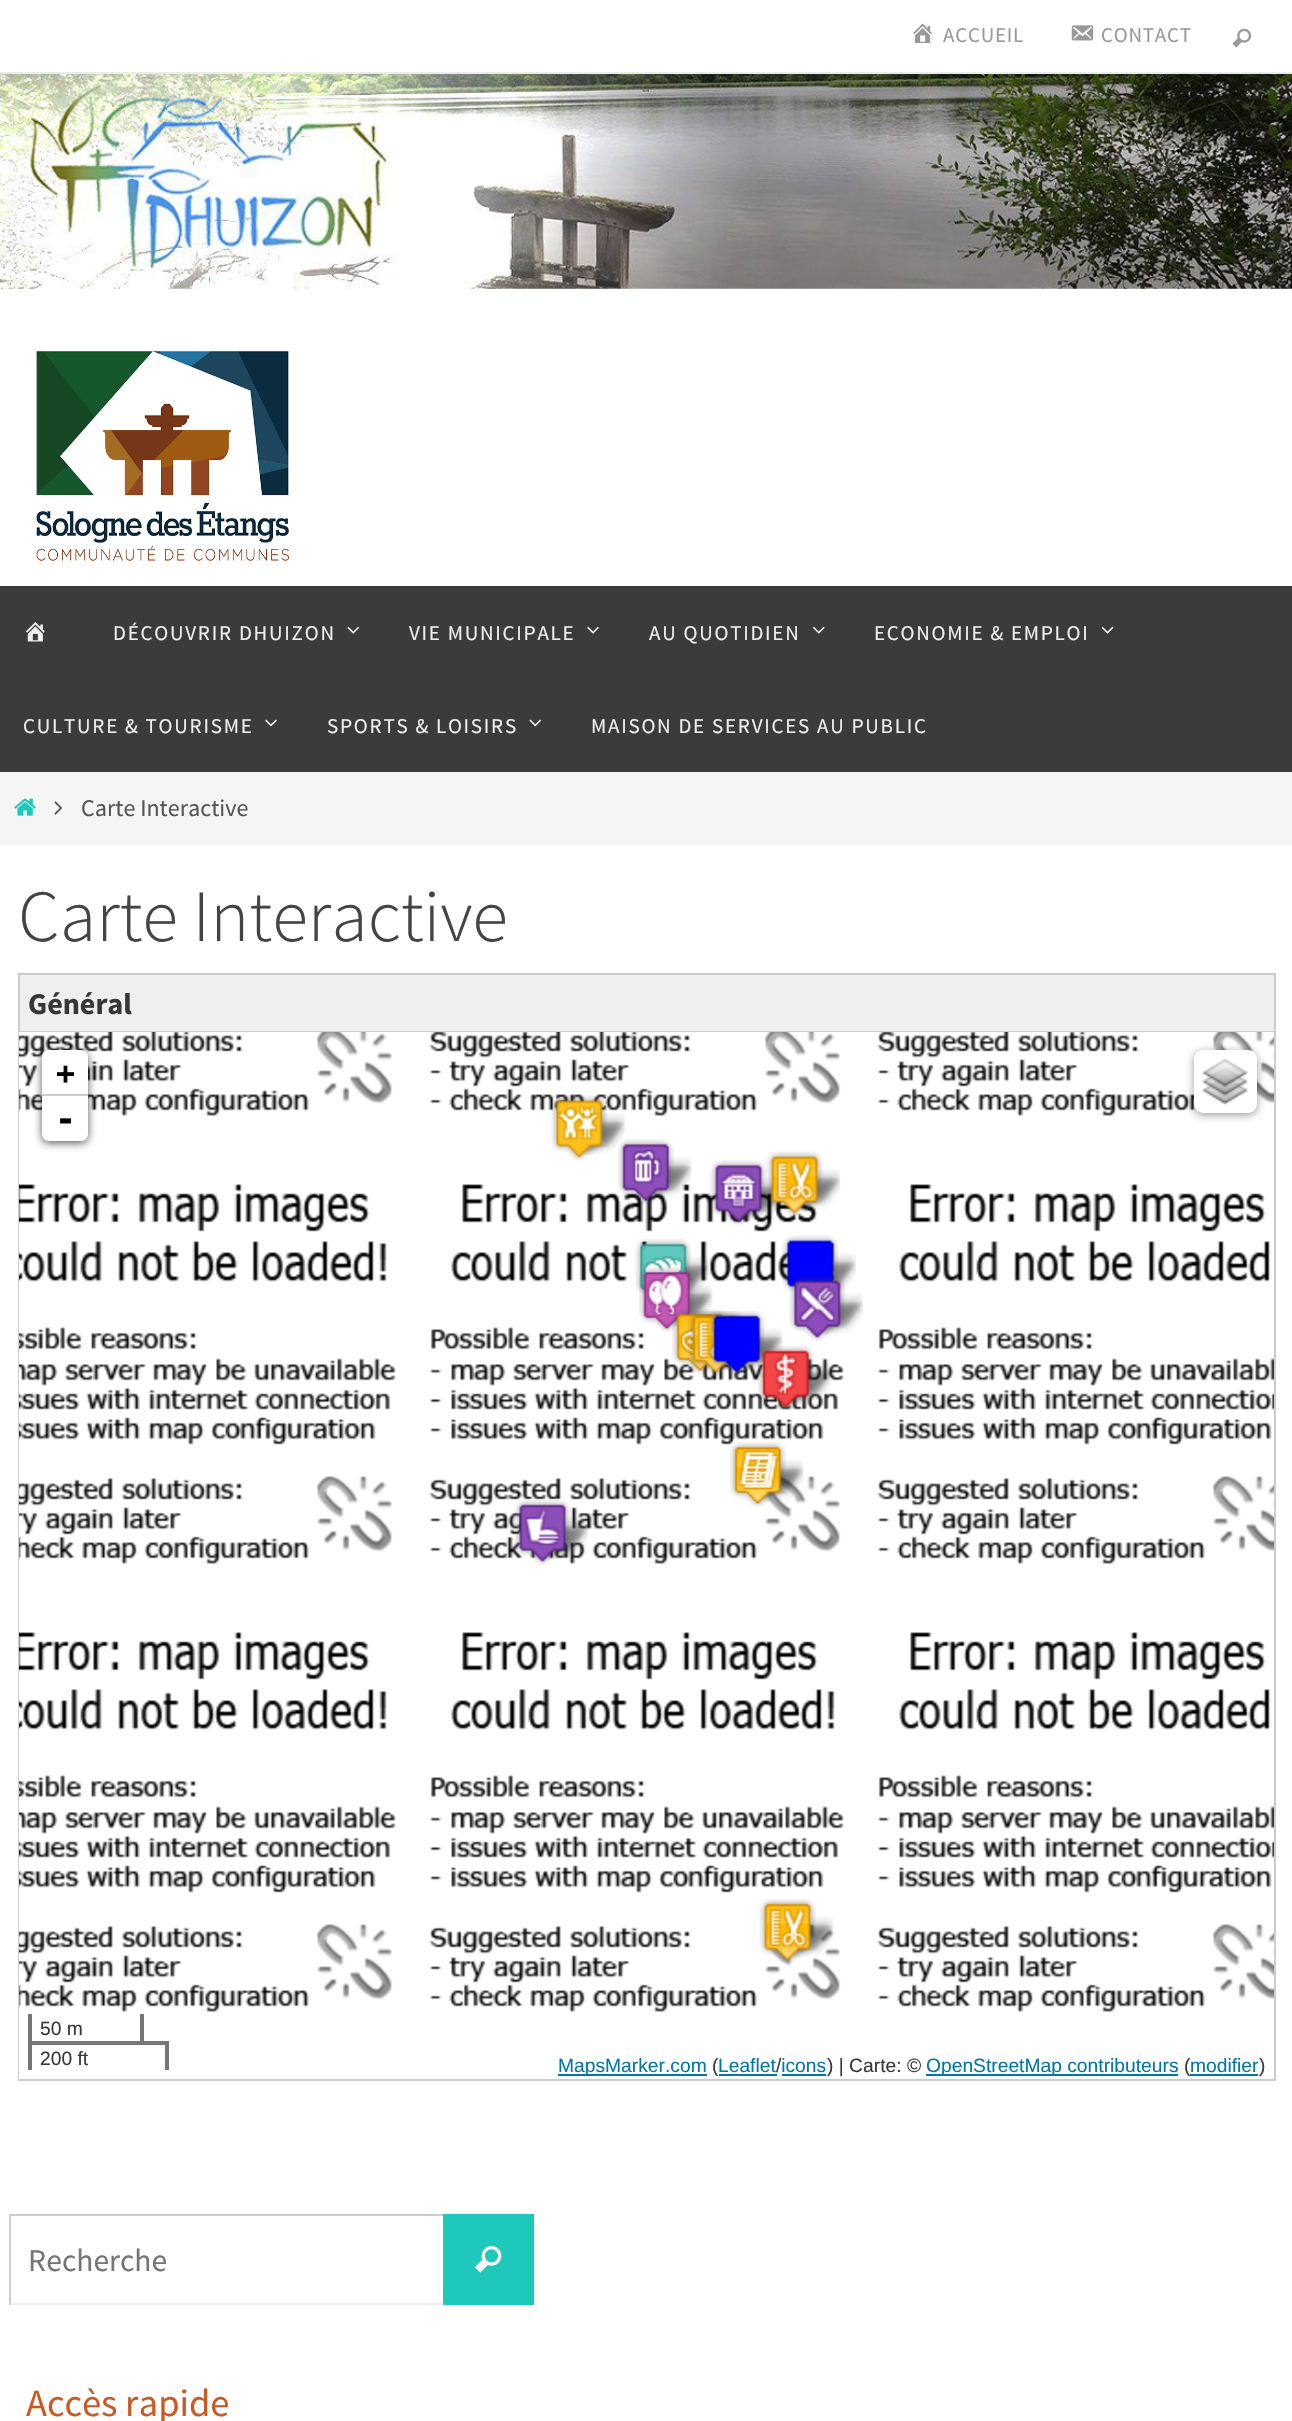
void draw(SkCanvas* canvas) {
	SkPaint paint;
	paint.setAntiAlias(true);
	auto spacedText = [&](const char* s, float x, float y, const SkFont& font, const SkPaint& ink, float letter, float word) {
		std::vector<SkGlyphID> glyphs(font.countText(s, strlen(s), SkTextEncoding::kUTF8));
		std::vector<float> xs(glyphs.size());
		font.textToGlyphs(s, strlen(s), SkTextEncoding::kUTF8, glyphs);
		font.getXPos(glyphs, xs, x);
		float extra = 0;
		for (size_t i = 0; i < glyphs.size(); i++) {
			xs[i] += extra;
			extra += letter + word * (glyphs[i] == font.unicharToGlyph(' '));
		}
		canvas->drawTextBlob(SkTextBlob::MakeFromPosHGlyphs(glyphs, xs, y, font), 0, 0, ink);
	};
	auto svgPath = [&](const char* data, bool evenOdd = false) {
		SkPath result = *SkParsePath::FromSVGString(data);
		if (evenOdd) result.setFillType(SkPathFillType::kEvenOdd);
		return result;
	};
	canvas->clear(0xffffffff);
	paint.setColor(0xffebebeb);
	canvas->drawRect(SkRect::MakeXYWH(0, 72, 1292, 2), paint);
	canvas->drawImageRect(SkImages::DeferredFromEncodedData(SkData::MakeFromFileName("img1.png")), SkRect::MakeXYWH(913, 23, 19, 20), SkSamplingOptions());
	SkFont f1(fontMgr->matchFamilyStyle("Source Sans Pro", SkFontStyle::Normal()), 21);
	f1.setSubpixel(true);
	paint.setColor(0xff999999);
	spacedText("ACCUEIL", 943, 42, f1, paint, 0.75, 0);
	canvas->drawImageRect(SkImages::DeferredFromEncodedData(SkData::MakeFromFileName("img2.png")), SkRect::MakeXYWH(1071, 25, 23, 16), SkSamplingOptions());
	spacedText("CONTACT", 1101, 42, f1, paint, 0.75, 0);
	canvas->drawImageRect(SkImages::DeferredFromEncodedData(SkData::MakeFromFileName("img3.png")), SkRect::MakeXYWH(1232, 28, 20, 20), SkSamplingOptions());
	canvas->drawImageRect(SkImages::DeferredFromEncodedData(SkData::MakeFromFileName("img4.png")), SkRect::MakeXYWH(0, 74, 1292, 215), SkSamplingOptions());
	canvas->drawImageRect(SkImages::DeferredFromEncodedData(SkData::MakeFromFileName("img5.png")), SkRect::MakeXYWH(36, 351, 253, 210), SkSamplingOptions());
	paint.setColor(0xff3a3b3d);
	canvas->drawRect(SkRect::MakeXYWH(0, 586, 1292, 186), paint);
	canvas->drawImageRect(SkImages::DeferredFromEncodedData(SkData::MakeFromFileName("img6.png")), SkRect::MakeXYWH(25, 622, 20, 20), SkSamplingOptions());
	paint.setColor(0xffeeeeee);
	spacedText("DÉCOUVRIR DHUIZON", 113, 640, f1, paint, 1.75, 0);
	canvas->drawImageRect(SkImages::DeferredFromEncodedData(SkData::MakeFromFileName("img7.png")), SkRect::MakeXYWH(347, 626, 13, 8), SkSamplingOptions());
	spacedText("VIE MUNICIPALE", 409, 640, f1, paint, 1.75, 0);
	canvas->drawImageRect(SkImages::DeferredFromEncodedData(SkData::MakeFromFileName("img8.png")), SkRect::MakeXYWH(587, 626, 12, 8), SkSamplingOptions());
	spacedText("AU QUOTIDIEN", 649, 640, f1, paint, 1.75, 0);
	canvas->drawImageRect(SkImages::DeferredFromEncodedData(SkData::MakeFromFileName("img9.png")), SkRect::MakeXYWH(813, 626, 12, 8), SkSamplingOptions());
	spacedText("ECONOMIE & EMPLOI", 874, 640, f1, paint, 1.75, 0);
	canvas->drawImageRect(SkImages::DeferredFromEncodedData(SkData::MakeFromFileName("img10.png")), SkRect::MakeXYWH(1101, 626, 13, 8), SkSamplingOptions());
	spacedText("CULTURE & TOURISME", 23, 733, f1, paint, 1.75, 0);
	canvas->drawImageRect(SkImages::DeferredFromEncodedData(SkData::MakeFromFileName("img11.png")), SkRect::MakeXYWH(265, 719, 12, 8), SkSamplingOptions());
	spacedText("SPORTS & LOISIRS", 327, 733, f1, paint, 1.75, 0);
	canvas->drawImageRect(SkImages::DeferredFromEncodedData(SkData::MakeFromFileName("img12.png")), SkRect::MakeXYWH(529, 719, 13, 8), SkSamplingOptions());
	spacedText("MAISON DE SERVICES AU PUBLIC", 591, 733, f1, paint, 1.75, 0);
	paint.setColor(0xfff5f5f5);
	canvas->drawRect(SkRect::MakeXYWH(0, 772, 1292, 73), paint);
	canvas->drawImageRect(SkImages::DeferredFromEncodedData(SkData::MakeFromFileName("img13.png")), SkRect::MakeXYWH(14, 798, 22, 18), SkSamplingOptions());
	canvas->drawImageRect(SkImages::DeferredFromEncodedData(SkData::MakeFromFileName("img14.png")), SkRect::MakeXYWH(54, 801, 9, 14), SkSamplingOptions());
	SkFont f2(fontMgr->matchFamilyStyle("Source Sans Pro", SkFontStyle::Normal()), 24);
	f2.setSubpixel(true);
	paint.setColor(0xff555555);
	canvas->drawString("Carte Interactive", 81, 816, f2, paint);
	SkFont f3(fontMgr->matchFamilyStyle("Source Sans Pro", SkFontStyle(300, SkFontStyle::kNormal_Width, SkFontStyle::kUpright_Slant)), 73.5);
	f3.setSubpixel(true);
	paint.setColor(0xff444444);
	canvas->drawString("Carte Interactive", 18, 941, f3, paint);
	paint.setColor(0xffefefef);
	canvas->drawRect(SkRect::MakeXYWH(20, 975, 1254, 56), paint);
	paint.setColor(0xffcccccc);
	canvas->drawRect(SkRect::MakeXYWH(18, 973, 1258, 2), paint);
	canvas->drawRect(SkRect::MakeXYWH(1274, 973, 2, 58), paint);
	canvas->drawRect(SkRect::MakeXYWH(18, 973, 2, 58), paint);
	SkFont f4(fontMgr->matchFamilyStyle("Source Sans Pro", SkFontStyle::Bold()), 30);
	f4.setSubpixel(true);
	paint.setColor(0xff373737);
	canvas->drawString("Général", 28, 1014, f4, paint);
	paint.setColor(0xfff6f6f6);
	canvas->drawRect(SkRect::MakeXYWH(411, 1146, 448, 896), paint);
	paint.setStroke(true);
	paint.setStrokeWidth(2);
	paint.setColor(0xffcccccc);
	canvas->drawRect(SkRect::MakeXYWH(19, 1032, 1256, 1048), paint);
	canvas->drawImageRect(SkImages::DeferredFromEncodedData(SkData::MakeFromFileName("img15.png")), SkRect::MakeXYWH(19, 1032, 392, 114), SkSamplingOptions());
	canvas->drawImageRect(SkImages::DeferredFromEncodedData(SkData::MakeFromFileName("img16.png")), SkRect::MakeXYWH(411, 1032, 448, 114), SkSamplingOptions());
	canvas->drawImageRect(SkImages::DeferredFromEncodedData(SkData::MakeFromFileName("img17.png")), SkRect::MakeXYWH(859, 1032, 415, 114), SkSamplingOptions());
	canvas->drawImageRect(SkImages::DeferredFromEncodedData(SkData::MakeFromFileName("img18.png")), SkRect::MakeXYWH(19, 1146, 392, 448), SkSamplingOptions());
	canvas->drawImageRect(SkImages::DeferredFromEncodedData(SkData::MakeFromFileName("img19.png")), SkRect::MakeXYWH(411, 1146, 448, 448), SkSamplingOptions());
	canvas->drawImageRect(SkImages::DeferredFromEncodedData(SkData::MakeFromFileName("img20.png")), SkRect::MakeXYWH(859, 1146, 415, 448), SkSamplingOptions());
	canvas->drawImageRect(SkImages::DeferredFromEncodedData(SkData::MakeFromFileName("img18.png")), SkRect::MakeXYWH(19, 1594, 392, 448), SkSamplingOptions());
	canvas->drawImageRect(SkImages::DeferredFromEncodedData(SkData::MakeFromFileName("img19.png")), SkRect::MakeXYWH(411, 1594, 448, 448), SkSamplingOptions());
	canvas->drawImageRect(SkImages::DeferredFromEncodedData(SkData::MakeFromFileName("img20.png")), SkRect::MakeXYWH(859, 1594, 415, 448), SkSamplingOptions());
	paint.setStroke(false);
	paint.setColor(0xffffffff);
	canvas->drawRect(SkRect::MakeXYWH(19, 2042, 1, 37), paint);
	canvas->drawImageRect(SkImages::DeferredFromEncodedData(SkData::MakeFromFileName("img36.png")), SkRect::MakeXYWH(571, 1113, 54, 42), SkSamplingOptions());
	canvas->drawImageRect(SkImages::DeferredFromEncodedData(SkData::MakeFromFileName("img21.png")), SkRect::MakeXYWH(551, 1095, 56, 66), SkSamplingOptions());
	canvas->drawImageRect(SkImages::DeferredFromEncodedData(SkData::MakeFromFileName("img37.png")), SkRect::MakeXYWH(637, 1157, 55, 42), SkSamplingOptions());
	canvas->drawImageRect(SkImages::DeferredFromEncodedData(SkData::MakeFromFileName("img22.png")), SkRect::MakeXYWH(618, 1139, 56, 65), SkSamplingOptions());
	canvas->drawImageRect(SkImages::DeferredFromEncodedData(SkData::MakeFromFileName("img38.png")), SkRect::MakeXYWH(730, 1178, 52, 42), SkSamplingOptions());
	canvas->drawImageRect(SkImages::DeferredFromEncodedData(SkData::MakeFromFileName("img39.png")), SkRect::MakeXYWH(786, 1169, 55, 42), SkSamplingOptions());
	canvas->drawImageRect(SkImages::DeferredFromEncodedData(SkData::MakeFromFileName("img24.png")), SkRect::MakeXYWH(766, 1151, 57, 66), SkSamplingOptions());
	canvas->drawImageRect(SkImages::DeferredFromEncodedData(SkData::MakeFromFileName("img23.png")), SkRect::MakeXYWH(710, 1160, 57, 65), SkSamplingOptions());
	canvas->drawImageRect(SkImages::DeferredFromEncodedData(SkData::MakeFromFileName("img40.png")), SkRect::MakeXYWH(685, 1257, 24, 40), SkSamplingOptions());
	canvas->drawImageRect(SkImages::DeferredFromEncodedData(SkData::MakeFromFileName("img42.png")), SkRect::MakeXYWH(658, 1285, 55, 42), SkSamplingOptions());
	canvas->drawImageRect(SkImages::DeferredFromEncodedData(SkData::MakeFromFileName("img25.png")), SkRect::MakeXYWH(635, 1239, 56, 56), SkSamplingOptions());
	canvas->drawImageRect(SkImages::DeferredFromEncodedData(SkData::MakeFromFileName("img41.png")), SkRect::MakeXYWH(832, 1253, 24, 39), SkSamplingOptions());
	canvas->drawImageRect(SkImages::DeferredFromEncodedData(SkData::MakeFromFileName("img26.png")), SkRect::MakeXYWH(782, 1235, 56, 57), SkSamplingOptions());
	canvas->drawImageRect(SkImages::DeferredFromEncodedData(SkData::MakeFromFileName("img27.png")), SkRect::MakeXYWH(639, 1267, 56, 65), SkSamplingOptions());
	canvas->drawImageRect(SkImages::DeferredFromEncodedData(SkData::MakeFromFileName("img45.png")), SkRect::MakeXYWH(707, 1329, 55, 42), SkSamplingOptions());
	canvas->drawImageRect(SkImages::DeferredFromEncodedData(SkData::MakeFromFileName("img44.png")), SkRect::MakeXYWH(730, 1328, 53, 43), SkSamplingOptions());
	canvas->drawImageRect(SkImages::DeferredFromEncodedData(SkData::MakeFromFileName("img46.png")), SkRect::MakeXYWH(692, 1360, 39, 9), SkSamplingOptions());
	canvas->drawImageRect(SkImages::DeferredFromEncodedData(SkData::MakeFromFileName("img28.png")), SkRect::MakeXYWH(672, 1309, 56, 65), SkSamplingOptions());
	canvas->drawImageRect(SkImages::DeferredFromEncodedData(SkData::MakeFromFileName("img43.png")), SkRect::MakeXYWH(809, 1293, 54, 43), SkSamplingOptions());
	canvas->drawImageRect(SkImages::DeferredFromEncodedData(SkData::MakeFromFileName("img29.png")), SkRect::MakeXYWH(789, 1276, 56, 65), SkSamplingOptions());
	canvas->drawImageRect(SkImages::DeferredFromEncodedData(SkData::MakeFromFileName("img30.png")), SkRect::MakeXYWH(688, 1311, 55, 65), SkSamplingOptions());
	canvas->drawImageRect(SkImages::DeferredFromEncodedData(SkData::MakeFromFileName("img31.png")), SkRect::MakeXYWH(709, 1311, 56, 65), SkSamplingOptions());
	canvas->drawImageRect(SkImages::DeferredFromEncodedData(SkData::MakeFromFileName("img47.png")), SkRect::MakeXYWH(777, 1363, 55, 43), SkSamplingOptions());
	canvas->drawImageRect(SkImages::DeferredFromEncodedData(SkData::MakeFromFileName("img32.png")), SkRect::MakeXYWH(758, 1346, 56, 65), SkSamplingOptions());
	canvas->drawImageRect(SkImages::DeferredFromEncodedData(SkData::MakeFromFileName("img48.png")), SkRect::MakeXYWH(749, 1460, 55, 42), SkSamplingOptions());
	canvas->drawImageRect(SkImages::DeferredFromEncodedData(SkData::MakeFromFileName("img33.png")), SkRect::MakeXYWH(730, 1442, 56, 65), SkSamplingOptions());
	canvas->drawImageRect(SkImages::DeferredFromEncodedData(SkData::MakeFromFileName("img49.png")), SkRect::MakeXYWH(535, 1517, 54, 43), SkSamplingOptions());
	canvas->drawImageRect(SkImages::DeferredFromEncodedData(SkData::MakeFromFileName("img34.png")), SkRect::MakeXYWH(514, 1500, 57, 65), SkSamplingOptions());
	canvas->drawImageRect(SkImages::DeferredFromEncodedData(SkData::MakeFromFileName("img50.png")), SkRect::MakeXYWH(779, 1916, 55, 43), SkSamplingOptions());
	canvas->drawImageRect(SkImages::DeferredFromEncodedData(SkData::MakeFromFileName("img35.png")), SkRect::MakeXYWH(759, 1899, 57, 65), SkSamplingOptions());
	paint.setColor(0xa6000000);
	paint.setMaskFilter(SkMaskFilter::MakeBlur(kNormal_SkBlurStyle, 4.5));
	canvas->drawRoundRect(SkRect::MakeXYWH(42, 1052, 46, 91), 7, 7, paint);
	paint.setMaskFilter(nullptr);
	paint.setColor(0xffffffff);
	canvas->drawPath(svgPath("M49 1050H81C85 1050 88 1053 88 1057V1096H42V1057C42 1053 45 1050 49 1050Z"), paint);
	paint.setColor(0xffcccccc);
	canvas->drawRect(SkRect::MakeXYWH(42, 1094, 46, 2), paint);
	SkFont f5(fontMgr->matchFamilyStyle("DejaVu Sans Mono", SkFontStyle::Bold()), 31.5);
	f5.setSubpixel(true);
	paint.setColor(0xff000000);
	canvas->drawString("+", 56, 1084, f5, paint);
	paint.setColor(0xffffffff);
	canvas->drawPath(svgPath("M42 1096H88V1134C88 1138 85 1141 81 1141H49C45 1141 42 1138 42 1134Z"), paint);
	SkFont f6(fontMgr->matchFamilyStyle("DejaVu Sans Mono", SkFontStyle::Bold()), 35);
	f6.setSubpixel(true);
	paint.setColor(0xff000000);
	canvas->drawString("-", 55, 1131, f6, paint);
	paint.setColor(0x66000000);
	paint.setMaskFilter(SkMaskFilter::MakeBlur(kNormal_SkBlurStyle, 4.5));
	canvas->drawRoundRect(SkRect::MakeXYWH(1194, 1052, 63, 63), 9, 9, paint);
	paint.setMaskFilter(nullptr);
	paint.setColor(0xffffffff);
	canvas->drawRoundRect(SkRect::MakeXYWH(1194, 1050, 63, 63), 9, 9, paint);
	canvas->drawImageRect(SkImages::DeferredFromEncodedData(SkData::MakeFromFileName("img51.png")), SkRect::MakeXYWH(1202, 1058, 46, 47), SkSamplingOptions());
	paint.setColor(0xff777777);
	canvas->drawRect(SkRect::MakeXYWH(140, 2014, 4, 30), paint);
	canvas->drawRect(SkRect::MakeXYWH(28, 2014, 4, 30), paint);
	SkFont f7(fontMgr->matchFamilyStyle("Liberation Sans", SkFontStyle::Normal()), 19.25);
	f7.setSubpixel(true);
	paint.setColor(0xff373737);
	canvas->drawString("50 m", 40, 2035, f7, paint);
	paint.setColor(0xff777777);
	canvas->drawRect(SkRect::MakeXYWH(28, 2041, 140, 4), paint);
	canvas->drawRect(SkRect::MakeXYWH(165, 2041, 4, 29), paint);
	canvas->drawRect(SkRect::MakeXYWH(28, 2041, 4, 29), paint);
	paint.setColor(0xff373737);
	canvas->drawString("200 ft", 40, 2065, f7, paint);
	paint.setColor(0xff0078a8);
	canvas->drawRect(SkRect::MakeXYWH(558, 2074, 149, 2), paint);
	canvas->drawString("MapsMarker.com", 558, 2072, f7, paint);
	paint.setColor(0xff373737);
	canvas->drawString("(", 712, 2072, f7, paint);
	paint.setColor(0xff0078a8);
	canvas->drawString("Leaflet icons", 718, 2072, f7, paint);
	canvas->drawRect(SkRect::MakeXYWH(719, 2074, 58, 2), paint);
	paint.setColor(0xff373737);
	canvas->drawString("/", 776, 2072, f7, paint);
	paint.setColor(0xff0078a8);
	canvas->drawRect(SkRect::MakeXYWH(782, 2074, 44, 2), paint);
	paint.setColor(0xff373737);
	canvas->drawString(") | Carte: ©", 827, 2072, f7, paint);
	paint.setColor(0xff0078a8);
	canvas->drawRect(SkRect::MakeXYWH(926, 2074, 252, 2), paint);
	canvas->drawString("OpenStreetMap contributeurs", 926, 2072, f7, paint);
	paint.setColor(0xff373737);
	canvas->drawString("(", 1184, 2072, f7, paint);
	paint.setColor(0xff0078a8);
	canvas->drawString("modifier", 1190, 2072, f7, paint);
	canvas->drawRect(SkRect::MakeXYWH(1190, 2074, 68, 2), paint);
	paint.setColor(0xff373737);
	canvas->drawString(")", 1259, 2072, f7, paint);
	paint.setColor(0xff1ec8bb);
	canvas->drawRect(SkRect::MakeXYWH(443, 2214, 91, 91), paint);
	paint.setColor(0xffcccccc);
	canvas->drawRect(SkRect::MakeXYWH(9, 2214, 434, 2), paint);
	paint.setColor(0xffeeeeee);
	canvas->drawRect(SkRect::MakeXYWH(9, 2303, 434, 2), paint);
	paint.setColor(0xffcccccc);
	canvas->drawRect(SkRect::MakeXYWH(9, 2214, 2, 91), paint);
	SkFont f8(fontMgr->matchFamilyStyle("Source Sans Pro", SkFontStyle::Normal()), 31.5);
	f8.setSubpixel(true);
	paint.setColor(0xff757575);
	canvas->drawString("Recherche", 28, 2271, f8, paint);
	canvas->drawImageRect(SkImages::DeferredFromEncodedData(SkData::MakeFromFileName("img52.png")), SkRect::MakeXYWH(474, 2246, 28, 27), SkSamplingOptions());
	SkFont f9(fontMgr->matchFamilyStyle("Source Sans Pro", SkFontStyle::Normal()), 38.5);
	f9.setSubpixel(true);
	paint.setColor(0xffcb5920);
	canvas->drawString("Accès rapide", 26, 2416, f9, paint);
}
